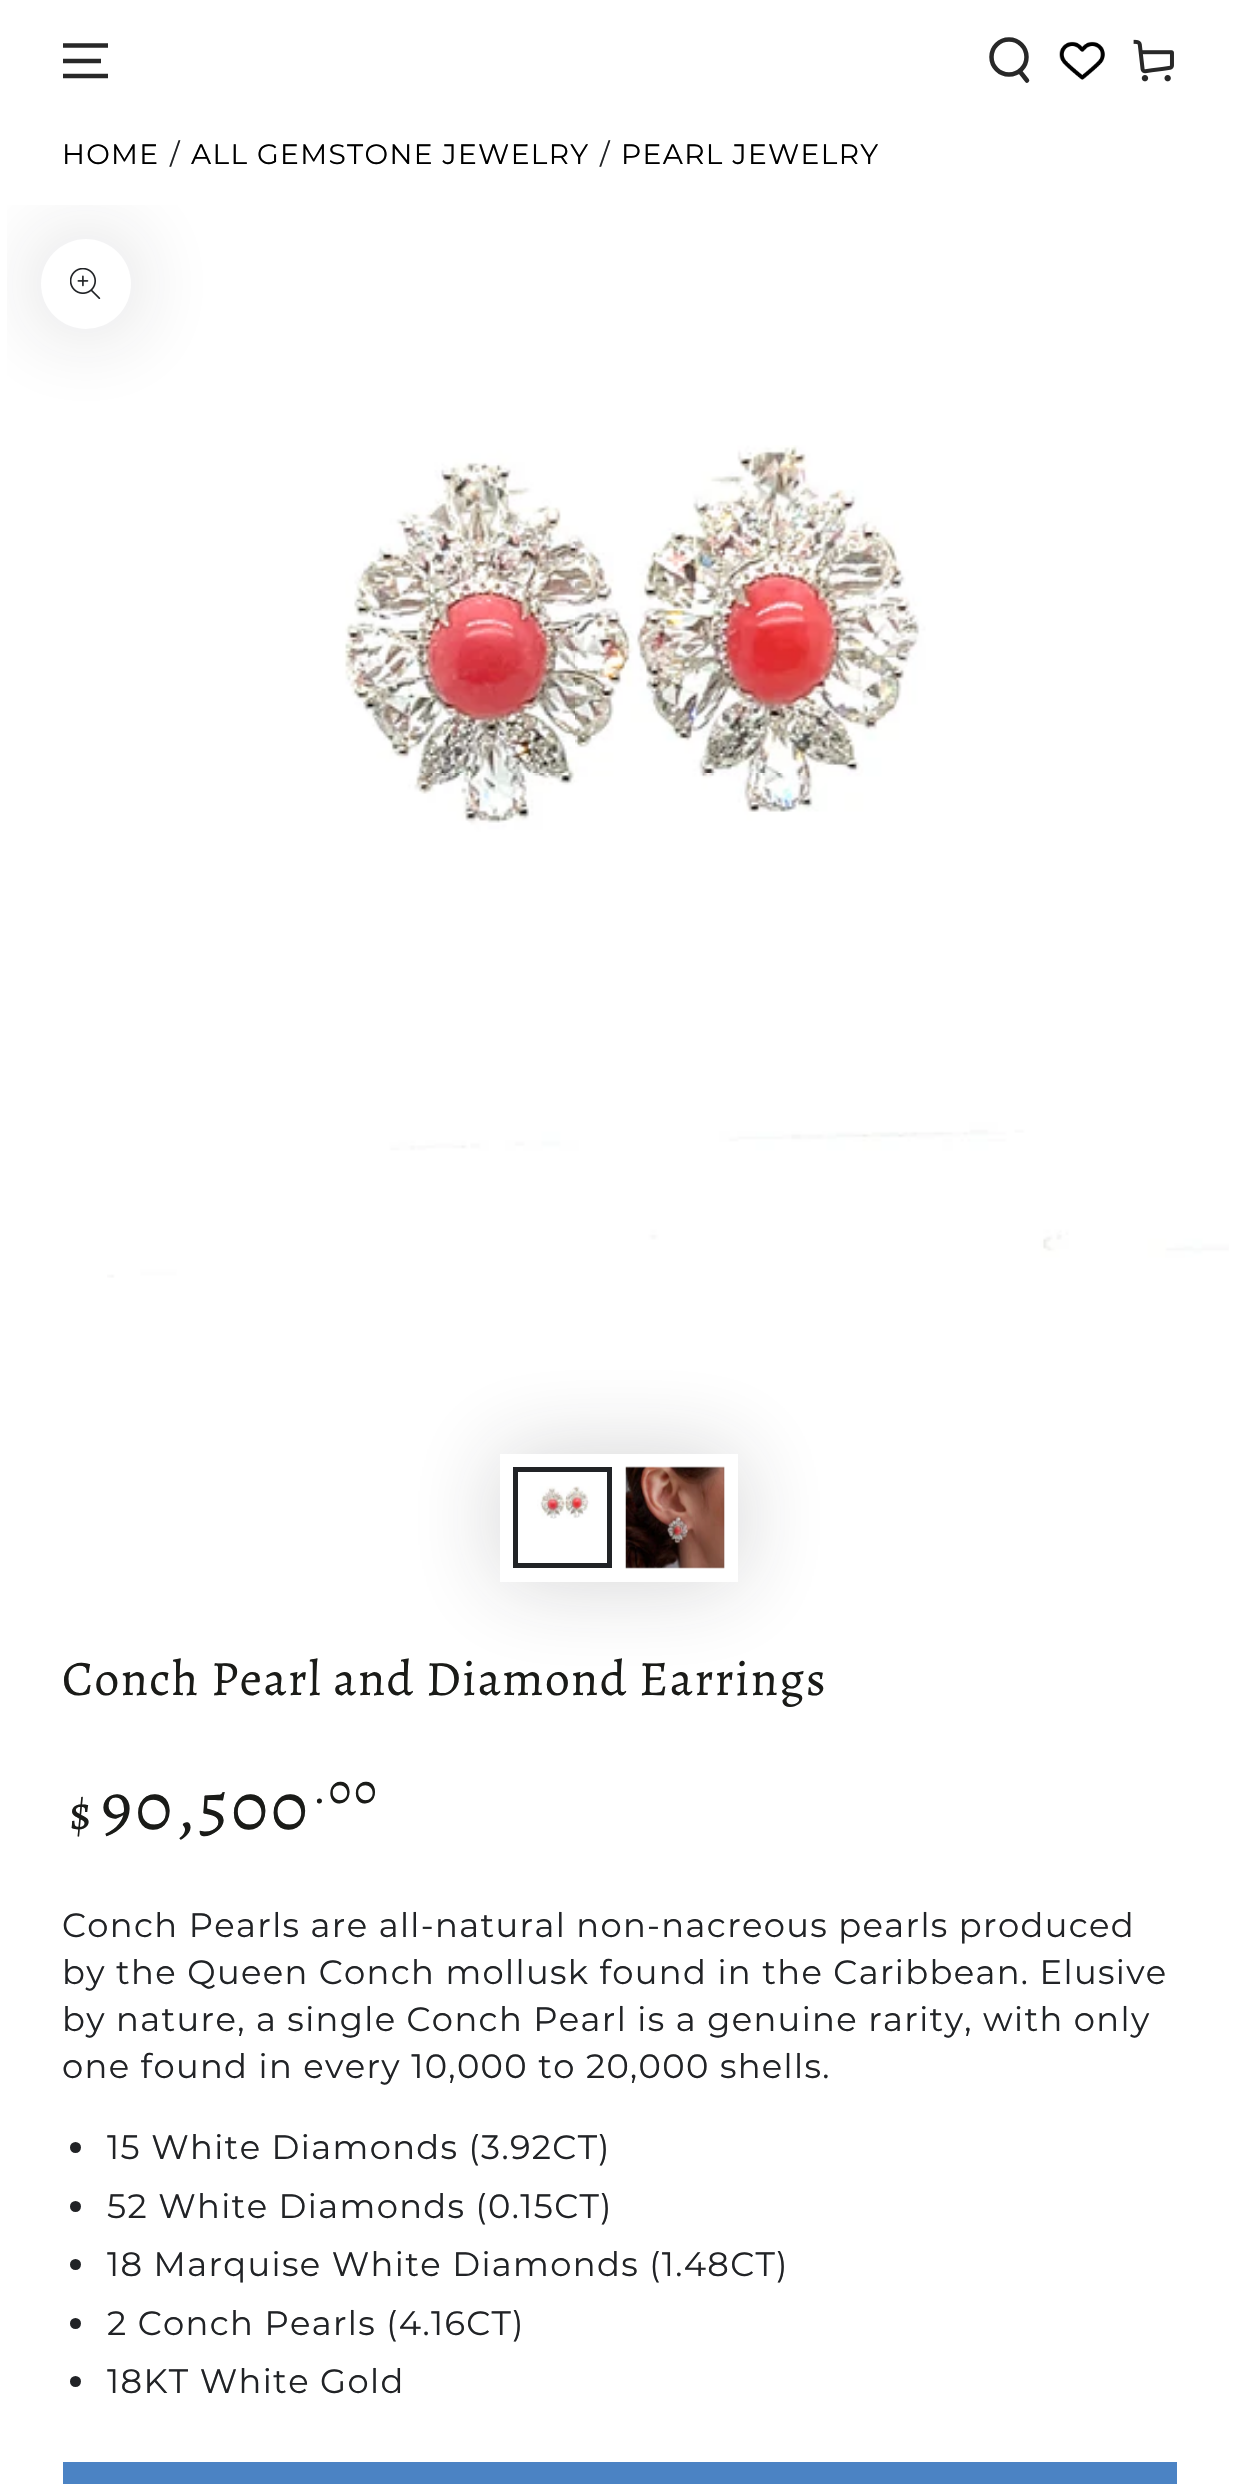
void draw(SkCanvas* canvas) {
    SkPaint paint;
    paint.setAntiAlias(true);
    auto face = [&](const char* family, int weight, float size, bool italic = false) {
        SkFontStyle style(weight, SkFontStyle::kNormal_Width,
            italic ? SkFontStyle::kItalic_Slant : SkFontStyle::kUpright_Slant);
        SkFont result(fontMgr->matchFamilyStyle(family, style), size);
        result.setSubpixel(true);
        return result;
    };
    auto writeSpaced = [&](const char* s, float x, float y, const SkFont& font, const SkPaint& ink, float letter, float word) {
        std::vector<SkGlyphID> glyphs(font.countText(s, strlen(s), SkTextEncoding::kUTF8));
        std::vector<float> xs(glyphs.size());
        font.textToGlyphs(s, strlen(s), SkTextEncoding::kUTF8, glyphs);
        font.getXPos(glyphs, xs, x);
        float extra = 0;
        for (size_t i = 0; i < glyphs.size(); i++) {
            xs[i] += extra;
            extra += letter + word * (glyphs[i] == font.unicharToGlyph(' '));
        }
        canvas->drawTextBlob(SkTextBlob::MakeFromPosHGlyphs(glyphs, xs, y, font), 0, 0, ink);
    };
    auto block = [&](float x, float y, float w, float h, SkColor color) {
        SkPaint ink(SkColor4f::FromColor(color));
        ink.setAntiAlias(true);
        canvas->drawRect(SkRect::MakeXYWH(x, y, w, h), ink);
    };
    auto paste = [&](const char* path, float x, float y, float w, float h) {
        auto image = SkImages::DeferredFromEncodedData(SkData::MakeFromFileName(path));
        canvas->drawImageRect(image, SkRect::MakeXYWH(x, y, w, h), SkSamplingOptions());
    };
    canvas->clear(SK_ColorWHITE);
    paint.setStyle(SkPaint::kStroke_Style);
    paint.setStrokeWidth(4.5f);
    paint.setColor(SkColorSetRGB(40, 40, 40));
    canvas->drawPath(SkPathBuilder().moveTo(63, 76).lineTo(108, 76).moveTo(63, 61).lineTo(101, 61).moveTo(63, 45.5f).lineTo(108, 45.5f).detach(), paint);
    canvas->drawCircle(1009, 57, 17.5f, paint);
    paint.setStrokeCap(SkPaint::kRound_Cap);
    canvas->drawPath(SkPathBuilder().moveTo(1019.5f, 71).lineTo(1027, 80.5f).detach(), paint);
    paste("pic1.png", 1059, 41, 46, 39);
    paste("pic2.png", 1133, 39, 41, 43);
    paste("pic4.png", 107, 445, 1122, 833);
    canvas->save();
    canvas->clipRect(SkRect::MakeXYWH(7, 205, 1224, 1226));
    paint.setStyle(SkPaint::kFill_Style);
    paint.setColor(SkColorSetARGB(51, 33, 35, 38));
    paint.setMaskFilter(SkMaskFilter::MakeBlur(kNormal_SkBlurStyle, 45));
    canvas->drawRoundRect(SkRect::MakeXYWH(41, 239, 90, 90), 45, 45, paint);
    paint.setMaskFilter(nullptr);
    canvas->restore();
    paint.setColor(SK_ColorWHITE);
    canvas->drawCircle(86, 284, 45, paint);
    paste("pic3.png", 70, 268, 31, 31);
    paint.setColor(SkColorSetARGB(51, 33, 35, 38));
    paint.setMaskFilter(SkMaskFilter::MakeBlur(kNormal_SkBlurStyle, 45));
    canvas->drawRect(SkRect::MakeXYWH(500, 1454, 238, 128), paint);
    paint.setMaskFilter(nullptr);
    block(500, 1454, 238, 128, SK_ColorWHITE);
    paste("pic5.png", 537, 1486, 53, 33);
    paint.setStyle(SkPaint::kStroke_Style);
    paint.setStrokeWidth(5);
    paint.setStrokeCap(SkPaint::kButt_Cap);
    paint.setColor(SkColorSetRGB(33, 35, 38));
    canvas->drawRect(SkRect::MakeXYWH(515.5f, 1469.5f, 94, 96), paint);
    paste("pic6.png", 625, 1466, 100, 103);
    paint.setStrokeWidth(2);
    paint.setColor(SkColorSetARGB(10, 33, 35, 38));
    canvas->drawRect(SkRect::MakeXYWH(627, 1468, 97, 99), paint);
    auto kFont1 = face("Montserrat", 100, 28.1f);
    paint.setStyle(SkPaint::kFill_Style);
    paint.setColor(SK_ColorBLACK);
    writeSpaced("HOME", 62, 164, kFont1, paint, 1.35f, 0);
    paint.setColor(SkColorSetRGB(33, 35, 38));
    writeSpaced("/", 170, 164, kFont1, paint, 1.35f, 0);
    paint.setColor(SK_ColorBLACK);
    writeSpaced("ALL GEMSTONE JEWELRY", 191, 164, kFont1, paint, 1.35f, 0);
    paint.setColor(SkColorSetRGB(33, 35, 38));
    writeSpaced("/", 600, 164, kFont1, paint, 1.35f, 0);
    paint.setColor(SK_ColorBLACK);
    writeSpaced("PEARL JEWELRY", 621, 164, kFont1, paint, 1.35f, 0);
    auto kFont2 = face("Alegreya", 400, 49.5f);
    paint.setColor(SkColorSetRGB(26, 27, 24));
    writeSpaced("Conch Pearl and Diamond Earrings", 62, 1695, kFont2, paint, 1.5f, 0);
    auto kFont3 = face("Alegreya", 400, 49);
    writeSpaced("$", 69, 1829, kFont3, paint, 3, 0);
    auto kFont4 = face("Alegreya", 400, 69);
    writeSpaced("90,500", 101, 1829, kFont4, paint, 3, 0);
    auto kFont5 = face("Alegreya", 400, 42);
    writeSpaced(".00", 313, 1803, kFont5, paint, 3, 0);
    auto kFont6 = face("Montserrat", 100, 33.75f);
    paint.setColor(SkColorSetRGB(33, 35, 38));
    writeSpaced("Conch Pearls are all-natural non-nacreous pearls produced", 62, 1937, kFont6, paint, 1.35f, 0);
    writeSpaced("by the Queen Conch mollusk found in the Caribbean. Elusive", 62, 1984, kFont6, paint, 1.35f, 0);
    writeSpaced("by nature, a single Conch Pearl is a genuine rarity, with only", 62, 2031, kFont6, paint, 1.35f, 0);
    writeSpaced("one found in every 10,000 to 20,000 shells.", 62, 2078, kFont6, paint, 1.35f, 0);
    canvas->drawCircle(75.5f, 2147.5f, 5.5f, paint);
    writeSpaced("15 White Diamonds (3.92CT)", 107, 2159, kFont6, paint, 1.35f, 0);
    canvas->drawCircle(75.5f, 2206.5f, 5.5f, paint);
    writeSpaced("52 White Diamonds (0.15CT)", 107, 2218, kFont6, paint, 1.35f, 0);
    canvas->drawCircle(75.5f, 2264.5f, 5.5f, paint);
    writeSpaced("18 Marquise White Diamonds (1.48CT)", 107, 2276, kFont6, paint, 1.35f, 0);
    canvas->drawCircle(75.5f, 2323.5f, 5.5f, paint);
    writeSpaced("2 Conch Pearls (4.16CT)", 107, 2335, kFont6, paint, 1.35f, 0);
    canvas->drawCircle(75.5f, 2381.5f, 5.5f, paint);
    writeSpaced("18KT White Gold", 107, 2393, kFont6, paint, 1.35f, 0);
    block(63, 2462, 1114, 22, SkColorSetRGB(75, 131, 196));
}
